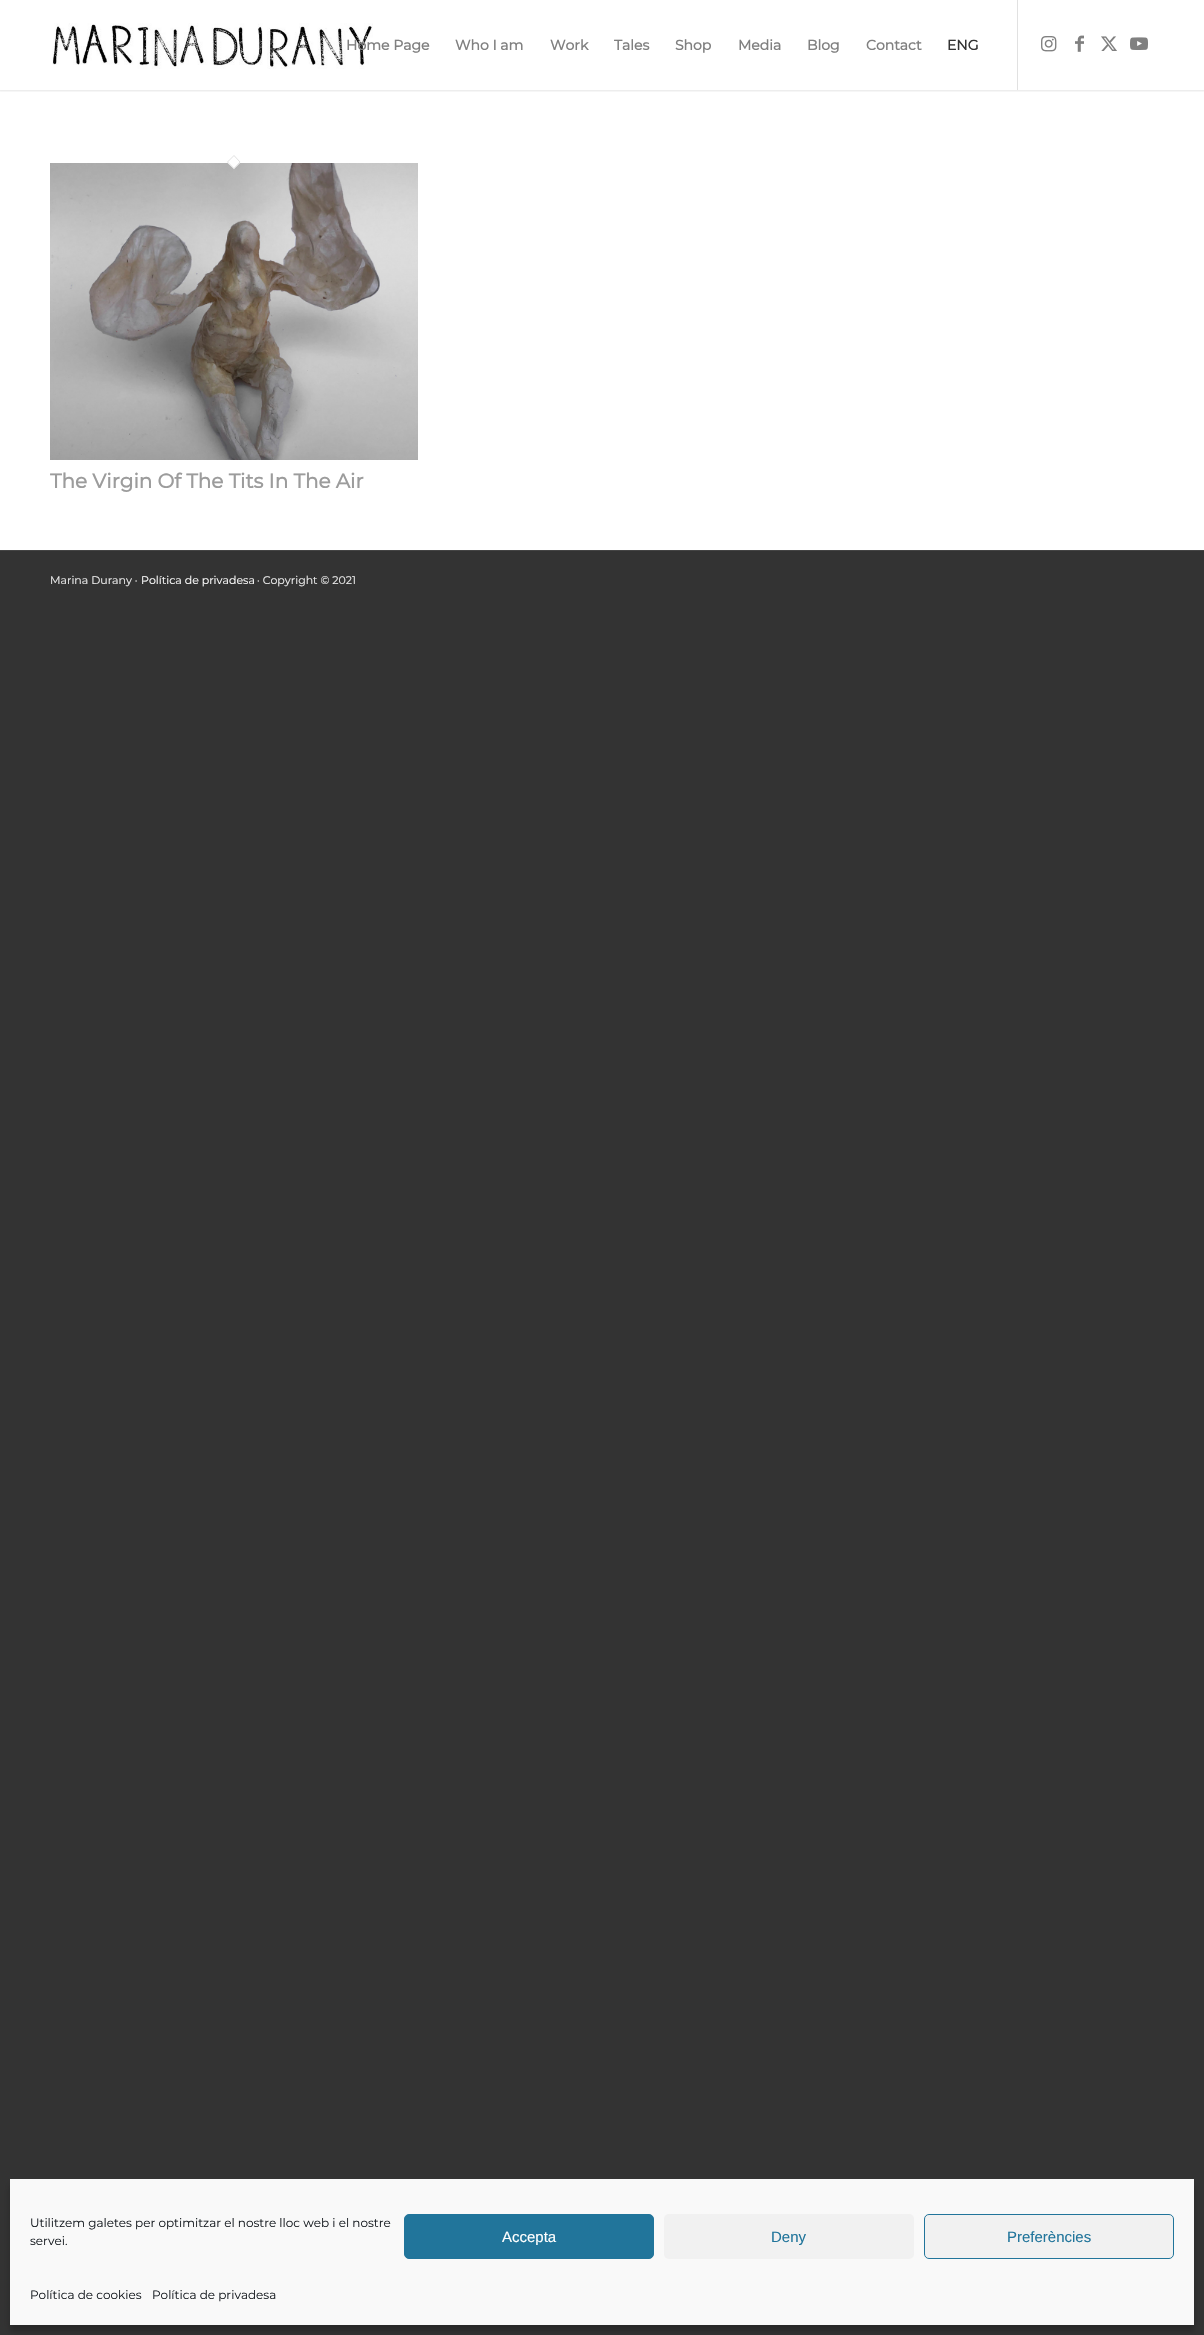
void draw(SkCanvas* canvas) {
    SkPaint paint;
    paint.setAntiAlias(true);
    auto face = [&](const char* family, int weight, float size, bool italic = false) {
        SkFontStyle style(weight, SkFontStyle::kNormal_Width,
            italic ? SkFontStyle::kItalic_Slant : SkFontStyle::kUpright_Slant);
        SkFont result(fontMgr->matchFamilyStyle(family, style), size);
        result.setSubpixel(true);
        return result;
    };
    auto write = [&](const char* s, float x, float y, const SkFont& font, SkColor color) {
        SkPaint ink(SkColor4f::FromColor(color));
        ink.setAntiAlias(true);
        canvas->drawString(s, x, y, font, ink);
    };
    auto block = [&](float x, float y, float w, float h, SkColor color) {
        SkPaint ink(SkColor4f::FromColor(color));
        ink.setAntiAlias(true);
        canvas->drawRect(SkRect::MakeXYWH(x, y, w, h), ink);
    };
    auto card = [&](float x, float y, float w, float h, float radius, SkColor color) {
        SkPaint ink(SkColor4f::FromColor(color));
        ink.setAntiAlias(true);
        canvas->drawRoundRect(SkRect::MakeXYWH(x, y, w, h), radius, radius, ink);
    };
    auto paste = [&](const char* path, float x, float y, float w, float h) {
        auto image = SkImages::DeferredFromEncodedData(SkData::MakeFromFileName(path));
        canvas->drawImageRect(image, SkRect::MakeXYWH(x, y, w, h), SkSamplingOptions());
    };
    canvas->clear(SkColorSetRGB(51, 51, 51));
    block(0, 0, 1204, 550, SK_ColorWHITE);
    canvas->save();
    canvas->clipRect(SkRect::MakeXYWH(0, 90, 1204, 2));
    paint.setColor(SkColorSetARGB(26, 0, 0, 0));
    paint.setMaskFilter(SkMaskFilter::MakeBlur(kNormal_SkBlurStyle, 1));
    canvas->drawRect(SkRect::MakeXYWH(-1, -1, 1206, 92), paint);
    paint.setMaskFilter(nullptr);
    canvas->restore();
    paste("pic1.png", 52, 23, 321, 46);
    block(1017, 0, 1, 90, SkColorSetRGB(225, 225, 225));
    auto kFont1 = face("Montserrat", 700, 14);
    write("Home Page", 346, 50, kFont1, SkColorSetRGB(128, 128, 128));
    write("Who I am", 455, 50, kFont1, SkColorSetRGB(128, 128, 128));
    write("Work", 550, 50, kFont1, SkColorSetRGB(128, 128, 128));
    write("Tales", 614, 50, kFont1, SkColorSetRGB(128, 128, 128));
    write("Shop", 675, 50, kFont1, SkColorSetRGB(128, 128, 128));
    write("Media", 738, 50, kFont1, SkColorSetRGB(128, 128, 128));
    write("Blog", 807, 50, kFont1, SkColorSetRGB(128, 128, 128));
    write("Contact", 866, 50, kFont1, SkColorSetRGB(128, 128, 128));
    write("ENG", 947, 50, kFont1, SkColorSetRGB(51, 51, 51));
    paste("pic2.png", 1041, 36, 16, 16);
    paste("pic3.png", 1075, 35, 9, 17);
    paste("pic4.png", 1101, 36, 16, 15);
    paste("pic5.png", 1130, 37, 18, 13);
    paste("pic6.png", 50, 163, 368, 297);
    paint.setColor(SK_ColorWHITE);
    canvas->drawPath(SkPathBuilder().moveTo(234, 155).lineTo(241, 162).lineTo(234, 169).lineTo(226.5f, 162).close().detach(), paint);
    paint.setStyle(SkPaint::kStroke_Style);
    paint.setStrokeWidth(1);
    paint.setColor(SkColorSetRGB(225, 225, 225));
    canvas->drawPath(SkPathBuilder().moveTo(234, 155.5f).lineTo(240, 162).lineTo(234, 168.5f).lineTo(227.5f, 162).close().detach(), paint);
    auto kFont2 = face("Montserrat", 700, 20);
    write("The Virgin Of The Tits In The Air", 50, 488, kFont2, SkColorSetRGB(156, 156, 156));
    block(0, 550, 1204, 1, SkColorSetRGB(68, 68, 68));
    auto kFont3 = face("Montserrat", 100, 11);
    write("Marina Durany ·", 50, 584, kFont3, SkColorSetRGB(238, 238, 238));
    write("Política de privadesa", 141, 584, kFont3, SK_ColorWHITE);
    write("· Copyright © 2021", 257, 584, kFont3, SkColorSetRGB(238, 238, 238));
    paint.setStyle(SkPaint::kFill_Style);
    paint.setColor(SkColorSetARGB(59, 0, 0, 0));
    paint.setMaskFilter(SkMaskFilter::MakeBlur(kNormal_SkBlurStyle, 3));
    canvas->drawRect(SkRect::MakeXYWH(10, 2185, 1184, 146), paint);
    paint.setMaskFilter(nullptr);
    block(10, 2179, 1184, 146, SkColorSetRGB(249, 249, 249));
    auto kFont4 = face("Montserrat", 100, 12);
    write("Utilitzem galetes per optimitzar el nostre lloc web i el nostre", 30, 2227, kFont4, SkColorSetRGB(25, 30, 35));
    write("servei.", 30, 2245, kFont4, SkColorSetRGB(25, 30, 35));
    paint.setColor(SkColorSetRGB(33, 117, 155));
    canvas->drawRoundRect(SkRect::MakeXYWH(404.5f, 2214.5f, 249, 44), 4.5f, 4.5f, paint);
    paint.setStyle(SkPaint::kStroke_Style);
    canvas->drawRoundRect(SkRect::MakeXYWH(404.5f, 2214.5f, 249, 44), 4.5f, 4.5f, paint);
    auto kFont5 = face("Liberation Sans", 400, 15);
    write("Accepta", 502, 2242, kFont5, SK_ColorWHITE);
    card(664, 2214, 250, 45, 5, SkColorSetRGB(241, 241, 241));
    write("Deny", 771, 2242, kFont5, SkColorSetRGB(33, 117, 155));
    paint.setStyle(SkPaint::kFill_Style);
    paint.setColor(SkColorSetRGB(241, 241, 241));
    canvas->drawRoundRect(SkRect::MakeXYWH(924.5f, 2214.5f, 249, 44), 4.5f, 4.5f, paint);
    paint.setStyle(SkPaint::kStroke_Style);
    paint.setColor(SkColorSetRGB(33, 117, 155));
    canvas->drawRoundRect(SkRect::MakeXYWH(924.5f, 2214.5f, 249, 44), 4.5f, 4.5f, paint);
    write("Preferències", 1007, 2242, kFont5, SkColorSetRGB(33, 117, 155));
    write("Política de cookies", 30, 2299, kFont4, SkColorSetRGB(25, 30, 35));
    write("Política de privadesa", 152, 2299, kFont4, SkColorSetRGB(25, 30, 35));
}
